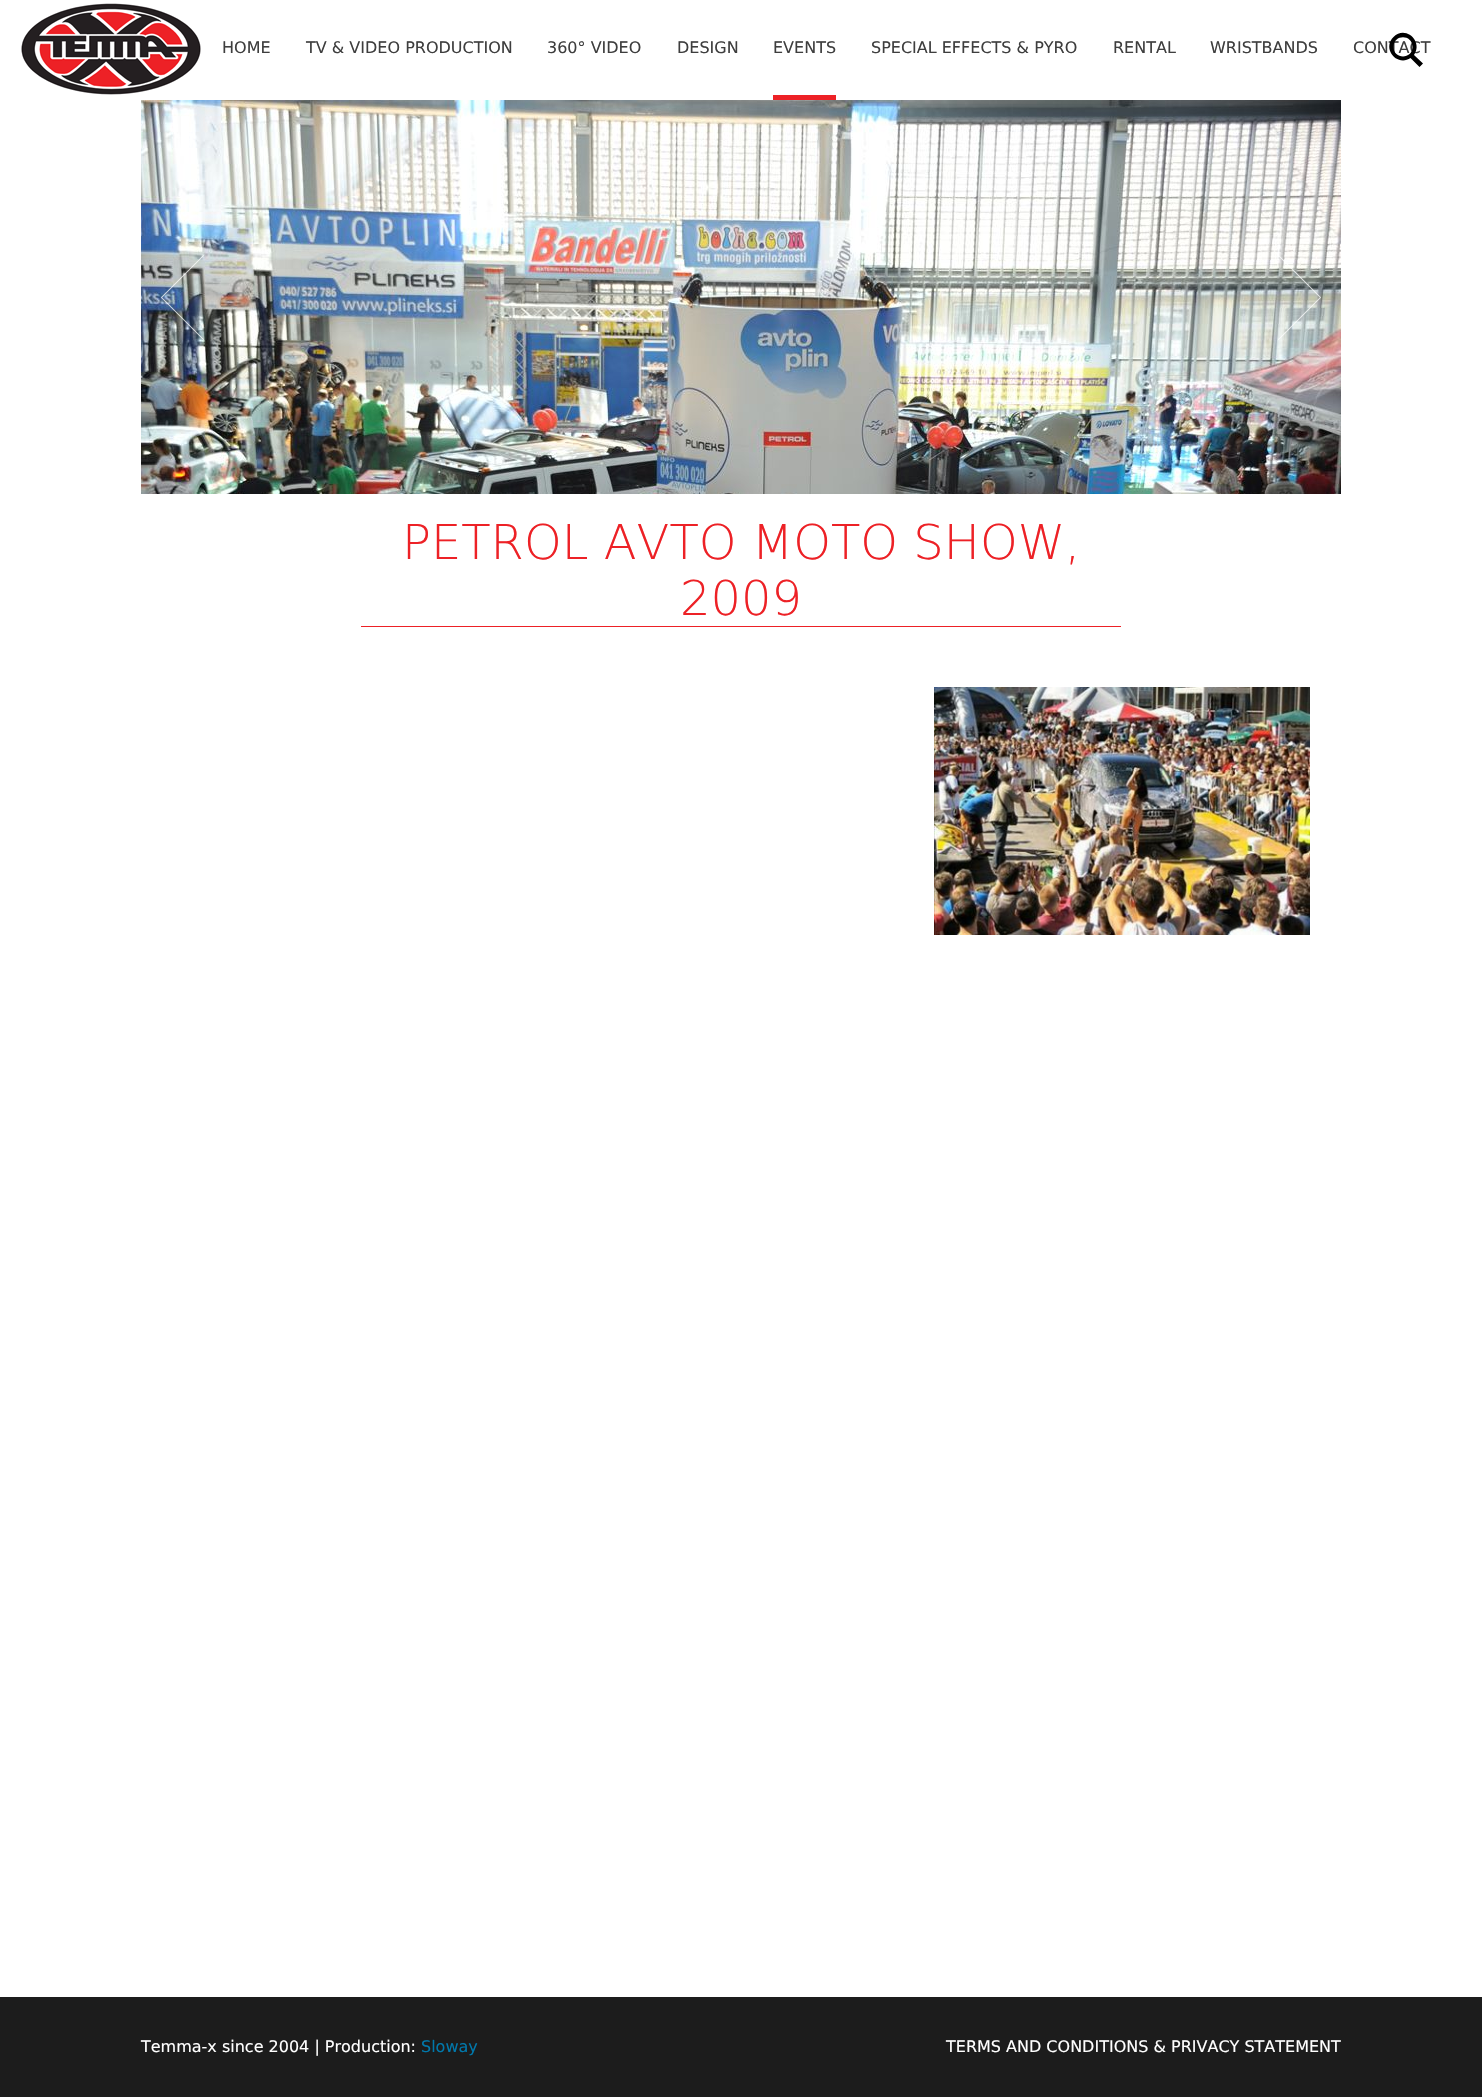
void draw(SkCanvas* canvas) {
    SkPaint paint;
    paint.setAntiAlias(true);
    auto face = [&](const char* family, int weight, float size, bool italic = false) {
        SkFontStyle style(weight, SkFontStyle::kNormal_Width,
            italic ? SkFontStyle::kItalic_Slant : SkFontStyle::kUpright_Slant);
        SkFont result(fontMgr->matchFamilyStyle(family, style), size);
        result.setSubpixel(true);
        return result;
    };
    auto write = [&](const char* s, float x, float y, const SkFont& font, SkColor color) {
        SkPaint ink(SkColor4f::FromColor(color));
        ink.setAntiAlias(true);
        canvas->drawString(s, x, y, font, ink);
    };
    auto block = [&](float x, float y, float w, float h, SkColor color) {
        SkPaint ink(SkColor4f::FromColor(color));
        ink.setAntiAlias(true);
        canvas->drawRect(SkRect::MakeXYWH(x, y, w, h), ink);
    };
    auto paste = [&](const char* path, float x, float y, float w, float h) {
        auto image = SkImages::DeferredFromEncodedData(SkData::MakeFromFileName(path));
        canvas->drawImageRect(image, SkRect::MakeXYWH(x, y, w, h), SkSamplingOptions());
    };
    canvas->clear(SK_ColorWHITE);
    paste("pic1.png", 21, 3, 180, 92);
    auto kFont1 = face("DejaVu Sans", 400, 16);
    write("CONTACT", 1353, 53, kFont1, SkColorSetRGB(62, 62, 62));
    paint.setColor(SK_ColorBLACK);
    canvas->drawPath(SkPathBuilder().moveTo(1423, 63.5f).lineTo(1414, 55).cubicTo(1423.5f, 41.5f, 1405.5f, 25, 1393.5f, 37).cubicTo(1381.5f, 49, 1397.5f, 67, 1410.5f, 58).lineTo(1419.5f, 67).close().moveTo(1393.5f, 47).cubicTo(1393.5f, 34, 1412.5f, 34, 1412.5f, 47).cubicTo(1412.5f, 59.5f, 1393.5f, 59.5f, 1393.5f, 47).close().detach(), paint);
    write("HOME", 222, 53, kFont1, SkColorSetRGB(62, 62, 62));
    write("TV & VIDEO PRODUCTION", 306, 53, kFont1, SkColorSetRGB(62, 62, 62));
    write("360° VIDEO", 547, 53, kFont1, SkColorSetRGB(62, 62, 62));
    write("DESIGN", 677, 53, kFont1, SkColorSetRGB(62, 62, 62));
    block(773, 95, 63, 5, SkColorSetRGB(237, 33, 38));
    write("EVENTS", 773, 53, kFont1, SkColorSetRGB(62, 62, 62));
    write("SPECIAL EFFECTS & PYRO", 871, 53, kFont1, SkColorSetRGB(62, 62, 62));
    write("RENTAL", 1113, 53, kFont1, SkColorSetRGB(62, 62, 62));
    write("WRISTBANDS", 1210, 53, kFont1, SkColorSetRGB(62, 62, 62));
    paste("pic2.png", 141, 100, 1200, 394);
    paste("pic3.png", 161, 255, 43, 85);
    paste("pic4.png", 1278, 256, 43, 84);
    block(361, 626, 760, 1, SkColorSetRGB(237, 33, 38));
    auto kFont2 = face("DejaVu Sans", 200, 48);
    write("PETROL AVTO MOTO SHOW,", 402, 559, kFont2, SkColorSetRGB(237, 33, 38));
    write("2009", 680, 615, kFont2, SkColorSetRGB(237, 33, 38));
    paste("pic5.png", 934, 687, 376, 248);
    block(0, 1997, 1482, 100, SkColorSetRGB(28, 28, 28));
    write("Temma-x since 2004 | Production:", 141, 2052, kFont1, SK_ColorWHITE);
    write("Sloway", 421, 2052, kFont1, SkColorSetRGB(0, 120, 171));
    write("TERMS AND CONDITIONS & PRIVACY STATEMENT", 946, 2052, kFont1, SK_ColorWHITE);
}
